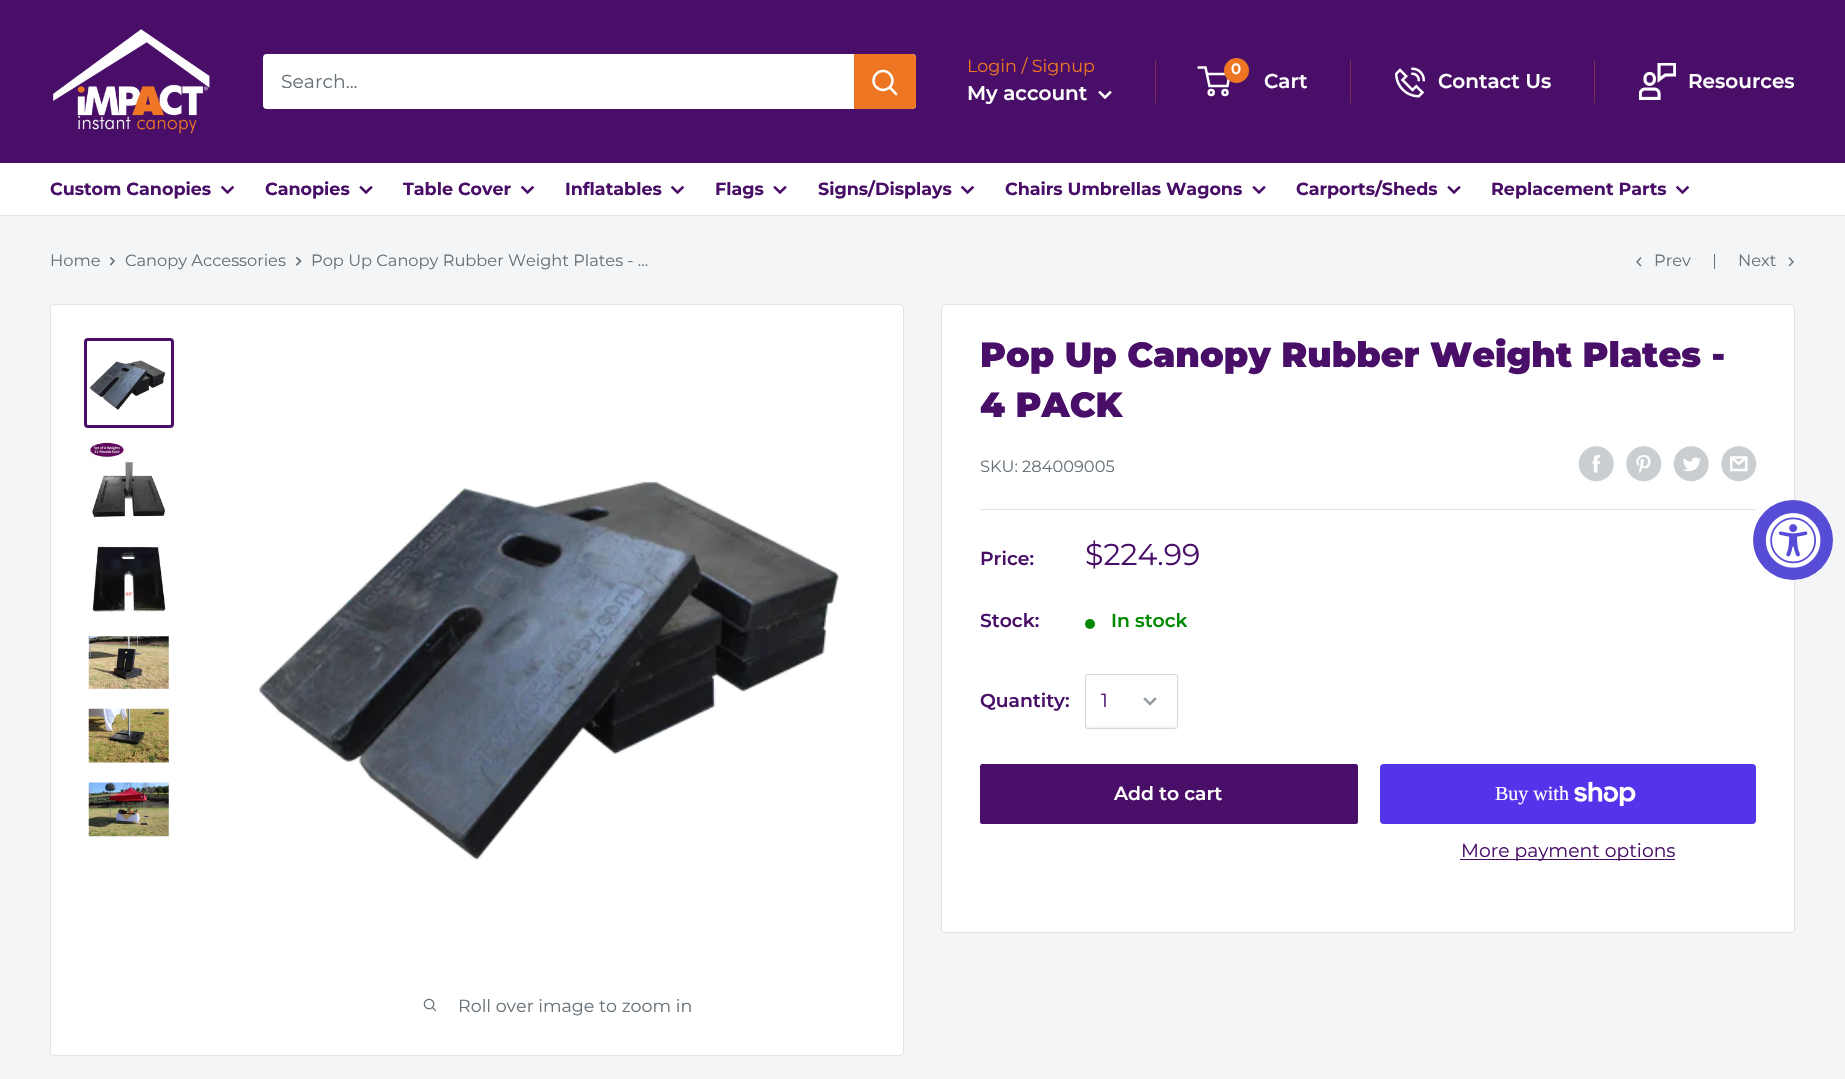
void draw(SkCanvas* canvas) {
    SkPaint paint;
    paint.setAntiAlias(true);
    auto face = [&](const char* family, int weight, float size, bool italic = false) {
        SkFontStyle style(weight, SkFontStyle::kNormal_Width,
            italic ? SkFontStyle::kItalic_Slant : SkFontStyle::kUpright_Slant);
        SkFont result(fontMgr->matchFamilyStyle(family, style), size);
        result.setSubpixel(true);
        return result;
    };
    auto write = [&](const char* s, float x, float y, const SkFont& font, SkColor color) {
        SkPaint ink(SkColor4f::FromColor(color));
        ink.setAntiAlias(true);
        canvas->drawString(s, x, y, font, ink);
    };
    auto block = [&](float x, float y, float w, float h, SkColor color) {
        SkPaint ink(SkColor4f::FromColor(color));
        ink.setAntiAlias(true);
        canvas->drawRect(SkRect::MakeXYWH(x, y, w, h), ink);
    };
    auto card = [&](float x, float y, float w, float h, float radius, SkColor color) {
        SkPaint ink(SkColor4f::FromColor(color));
        ink.setAntiAlias(true);
        canvas->drawRoundRect(SkRect::MakeXYWH(x, y, w, h), radius, radius, ink);
    };
    auto paste = [&](const char* path, float x, float y, float w, float h) {
        auto image = SkImages::DeferredFromEncodedData(SkData::MakeFromFileName(path));
        canvas->drawImageRect(image, SkRect::MakeXYWH(x, y, w, h), SkSamplingOptions());
    };
    canvas->clear(SkColorSetRGB(243, 245, 246));
    block(0, 0, 1845, 163, SkColorSetRGB(73, 14, 103));
    paste("pic1.png", 53, 29, 157, 105);
    card(263, 54, 653, 55, 4, SK_ColorWHITE);
    auto kFont1 = face("Montserrat", 400, 18.75f);
    write("Search...", 281, 88, kFont1, SkColorSetRGB(103, 114, 121));
    paint.setColor(SkColorSetRGB(238, 118, 35));
    canvas->drawPath(SkPathBuilder().moveTo(854, 54).lineTo(912, 54).cubicTo(914, 54, 916, 56, 916, 58).lineTo(916, 105).cubicTo(916, 107, 914, 109, 912, 109).lineTo(854, 109).close().detach(), paint);
    paint.setStyle(SkPaint::kStroke_Style);
    paint.setStrokeWidth(2.5f);
    paint.setStrokeCap(SkPaint::kSquare_Cap);
    paint.setColor(SK_ColorWHITE);
    canvas->drawPath(SkPathBuilder().moveTo(896, 94).lineTo(890, 87.5f).detach(), paint);
    paint.setStrokeCap(SkPaint::kButt_Cap);
    canvas->drawCircle(883, 80.5f, 9.5f, paint);
    auto kFont2 = face("Montserrat", 400, 17.5f);
    write("Login / Signup", 967, 72, kFont2, SkColorSetRGB(238, 118, 35));
    block(1155, 60, 1, 43, SkColorSetRGB(123, 45, 83));
    auto kFont3 = face("Montserrat", 600, 20);
    write("My account", 967, 100, kFont3, SK_ColorWHITE);
    paint.setStrokeCap(SkPaint::kSquare_Cap);
    canvas->drawPath(SkPathBuilder().moveTo(1110, 92.5f).lineTo(1105, 97.5f).lineTo(1100, 92.5f).detach(), paint);
    paint.setStrokeCap(SkPaint::kButt_Cap);
    canvas->drawCircle(1211.2f, 92.5f, 2.5f, paint);
    canvas->drawCircle(1225, 92.5f, 2.5f, paint);
    canvas->drawPath(SkPathBuilder().moveTo(1206.5f, 74).lineTo(1229.5f, 74).lineTo(1227.5f, 86).lineTo(1209.5f, 86).lineTo(1205.5f, 67.5f).lineTo(1197.5f, 67.5f).detach(), paint);
    paint.setStyle(SkPaint::kFill_Style);
    paint.setColor(SkColorSetRGB(238, 118, 35));
    canvas->drawCircle(1236.5f, 70.5f, 12.5f, paint);
    auto kFont4 = face("Montserrat", 600, 15);
    write("0", 1231, 74, kFont4, SK_ColorWHITE);
    write("Cart", 1264, 88, kFont3, SK_ColorWHITE);
    block(1350, 60, 1, 43, SkColorSetRGB(123, 45, 83));
    paste("pic2.png", 1395, 67, 30, 31);
    write("Contact Us", 1438, 88, kFont3, SK_ColorWHITE);
    block(1594, 60, 1, 43, SkColorSetRGB(123, 45, 83));
    paste("pic3.png", 1639, 63, 37, 37);
    write("Resources", 1688, 88, kFont3, SK_ColorWHITE);
    block(0, 163, 1845, 52, SK_ColorWHITE);
    block(0, 215, 1845, 1, SkColorSetRGB(225, 227, 228));
    auto kFont5 = face("Montserrat", 700, 17.5f);
    write("Custom Canopies", 50, 195, kFont5, SkColorSetRGB(73, 14, 103));
    paint.setStyle(SkPaint::kStroke_Style);
    paint.setStrokeCap(SkPaint::kSquare_Cap);
    paint.setColor(SkColorSetRGB(73, 15, 103));
    canvas->drawPath(SkPathBuilder().moveTo(232.5f, 187.5f).lineTo(227.5f, 192.5f).lineTo(222.5f, 187.5f).detach(), paint);
    write("Canopies", 265, 195, kFont5, SkColorSetRGB(73, 14, 103));
    canvas->drawPath(SkPathBuilder().moveTo(371, 187.5f).lineTo(366, 192.5f).lineTo(361, 187.5f).detach(), paint);
    write("Table Cover", 403, 195, kFont5, SkColorSetRGB(73, 14, 103));
    canvas->drawPath(SkPathBuilder().moveTo(532.5f, 187.5f).lineTo(527.5f, 192.5f).lineTo(522.5f, 187.5f).detach(), paint);
    write("Inflatables", 565, 195, kFont5, SkColorSetRGB(73, 14, 103));
    canvas->drawPath(SkPathBuilder().moveTo(682.5f, 187.5f).lineTo(677.5f, 192.5f).lineTo(672.5f, 187.5f).detach(), paint);
    write("Flags", 715, 195, kFont5, SkColorSetRGB(73, 14, 103));
    canvas->drawPath(SkPathBuilder().moveTo(785, 187.5f).lineTo(780, 192.5f).lineTo(775, 187.5f).detach(), paint);
    write("Signs/Displays", 818, 195, kFont5, SkColorSetRGB(73, 14, 103));
    canvas->drawPath(SkPathBuilder().moveTo(972.5f, 187.5f).lineTo(967.5f, 192.5f).lineTo(962.5f, 187.5f).detach(), paint);
    write("Chairs Umbrellas Wagons", 1005, 195, kFont5, SkColorSetRGB(73, 14, 103));
    canvas->drawPath(SkPathBuilder().moveTo(1264, 187.5f).lineTo(1259, 192.5f).lineTo(1254, 187.5f).detach(), paint);
    write("Carports/Sheds", 1296, 195, kFont5, SkColorSetRGB(73, 14, 103));
    canvas->drawPath(SkPathBuilder().moveTo(1459, 187.5f).lineTo(1454, 192.5f).lineTo(1449, 187.5f).detach(), paint);
    write("Replacement Parts", 1491, 195, kFont5, SkColorSetRGB(73, 14, 103));
    canvas->drawPath(SkPathBuilder().moveTo(1687.5f, 187.5f).lineTo(1682.5f, 192.5f).lineTo(1677.5f, 187.5f).detach(), paint);
    auto kFont6 = face("Montserrat", 400, 16.25f);
    write("Home", 50, 266, kFont6, SkColorSetRGB(103, 114, 121));
    paint.setStrokeWidth(1.7f);
    paint.setColor(SkColorSetRGB(103, 114, 121));
    canvas->drawPath(SkPathBuilder().moveTo(111, 258).lineTo(114, 261).lineTo(111, 264.5f).detach(), paint);
    write("Canopy Accessories", 125, 266, kFont6, SkColorSetRGB(103, 114, 121));
    canvas->drawPath(SkPathBuilder().moveTo(297, 258).lineTo(300.5f, 261).lineTo(297, 264.5f).detach(), paint);
    write("Pop Up Canopy Rubber Weight Plates - ...", 311, 266, kFont6, SkColorSetRGB(103, 114, 121));
    paint.setStrokeWidth(1.4f);
    canvas->drawPath(SkPathBuilder().moveTo(1640.5f, 265.5f).lineTo(1637, 262).lineTo(1640.5f, 258).detach(), paint);
    write("Prev", 1654, 266, kFont6, SkColorSetRGB(103, 114, 121));
    block(1714, 254, 1, 15, SkColorSetRGB(103, 114, 121));
    write("Next", 1738, 266, kFont6, SkColorSetRGB(103, 114, 121));
    canvas->drawPath(SkPathBuilder().moveTo(1789.5f, 258).lineTo(1793, 262).lineTo(1789.5f, 265.5f).detach(), paint);
    paint.setStyle(SkPaint::kFill_Style);
    paint.setColor(SK_ColorWHITE);
    canvas->drawRoundRect(SkRect::MakeXYWH(941.5f, 304.5f, 853, 628), 3.5f, 3.5f, paint);
    paint.setStyle(SkPaint::kStroke_Style);
    paint.setStrokeWidth(1);
    paint.setStrokeCap(SkPaint::kButt_Cap);
    paint.setColor(SkColorSetRGB(225, 227, 228));
    canvas->drawRoundRect(SkRect::MakeXYWH(941.5f, 304.5f, 853, 628), 3.5f, 3.5f, paint);
    auto kFont7 = face("Montserrat", 900, 35);
    write("Pop Up Canopy Rubber Weight Plates -", 980, 367, kFont7, SkColorSetRGB(73, 14, 103));
    write("4 PACK", 980, 417, kFont7, SkColorSetRGB(73, 14, 103));
    write("SKU: 284009005", 980, 472, kFont6, SkColorSetRGB(103, 114, 121));
    paste("pic4.png", 1578, 446, 36, 36);
    paste("pic5.png", 1626, 446, 36, 36);
    paste("pic6.png", 1673, 446, 36, 36);
    paste("pic7.png", 1721, 446, 36, 36);
    block(980, 509, 776, 1, SkColorSetRGB(225, 227, 228));
    auto kFont8 = face("Montserrat", 600, 18.75f);
    write("Price:", 980, 565, kFont8, SkColorSetRGB(73, 14, 103));
    auto kFont9 = face("Montserrat", 400, 30);
    write("$224.99", 1085, 565, kFont9, SkColorSetRGB(73, 14, 103));
    write("Stock:", 980, 627, kFont8, SkColorSetRGB(73, 14, 103));
    paint.setStyle(SkPaint::kFill_Style);
    paint.setColor(SkColorSetRGB(0, 138, 0));
    canvas->drawCircle(1090, 624, 5, paint);
    write("In stock", 1111, 627, kFont8, SkColorSetRGB(0, 138, 0));
    write("Quantity:", 980, 707, kFont8, SkColorSetRGB(73, 14, 103));
    paint.setColor(SkColorSetRGB(242, 243, 243));
    canvas->drawPath(SkPathBuilder().moveTo(1086, 725).cubicTo(1086, 732, 1093, 728, 1102, 728).lineTo(1160, 728).cubicTo(1170, 728, 1176, 732, 1176, 725).lineTo(1175, 726).lineTo(1102, 726).cubicTo(1099, 726, 1090, 727, 1087, 726).close().detach(), paint);
    paint.setStyle(SkPaint::kStroke_Style);
    paint.setColor(SkColorSetRGB(212, 214, 216));
    canvas->drawRoundRect(SkRect::MakeXYWH(1085.5f, 674.5f, 92, 54), 2, 2, paint);
    write("1", 1101, 707, kFont1, SkColorSetRGB(73, 14, 103));
    paint.setStrokeWidth(2.5f);
    paint.setStrokeCap(SkPaint::kSquare_Cap);
    paint.setColor(SkColorSetRGB(149, 156, 161));
    canvas->drawPath(SkPathBuilder().moveTo(1155, 699).lineTo(1150, 704).lineTo(1145, 699).detach(), paint);
    card(980, 764, 378, 60, 2.5f, SkColorSetRGB(73, 14, 103));
    write("Add to cart", 1114, 800, kFont8, SK_ColorWHITE);
    card(1380, 764, 376, 60, 4, SkColorSetRGB(84, 51, 235));
    auto kFont10 = face("Liberation Serif", 400, 20);
    write("Buy with", 1495, 800, kFont10, SK_ColorWHITE);
    paste("pic8.png", 1574, 781, 62, 25);
    block(1460, 859, 215, 1, SkColorSetRGB(73, 14, 103));
    write("More payment options", 1461, 857, kFont1, SkColorSetRGB(73, 14, 103));
    paint.setStyle(SkPaint::kFill_Style);
    paint.setColor(SK_ColorWHITE);
    canvas->drawRoundRect(SkRect::MakeXYWH(50.5f, 304.5f, 853, 751), 3.5f, 3.5f, paint);
    paint.setStyle(SkPaint::kStroke_Style);
    paint.setStrokeWidth(1);
    paint.setStrokeCap(SkPaint::kButt_Cap);
    paint.setColor(SkColorSetRGB(225, 227, 228));
    canvas->drawRoundRect(SkRect::MakeXYWH(50.5f, 304.5f, 853, 751), 3.5f, 3.5f, paint);
    paint.setStrokeWidth(3);
    paint.setColor(SkColorSetRGB(73, 14, 103));
    canvas->drawRoundRect(SkRect::MakeXYWH(85.5f, 339.5f, 87, 87), 2.5f, 2.5f, paint);
    paste("pic9.png", 89, 360, 77, 50);
    paste("pic10.png", 89, 442, 76, 77);
    paste("pic11.png", 92, 546, 75, 67);
    paste("pic12.png", 88, 636, 81, 53);
    paste("pic13.png", 88, 708, 81, 55);
    paste("pic14.png", 88, 782, 81, 55);
    paste("pic15.png", 259, 481, 580, 379);
    paste("pic16.png", 423, 998, 14, 14);
    write("Roll over image to zoom in", 458, 1012, kFont2, SkColorSetRGB(103, 114, 121));
    paint.setStyle(SkPaint::kFill_Style);
    paint.setColor(SkColorSetRGB(87, 76, 213));
    canvas->drawCircle(1793, 540, 40, paint);
    paste("pic17.png", 1765, 513, 56, 55);
}
